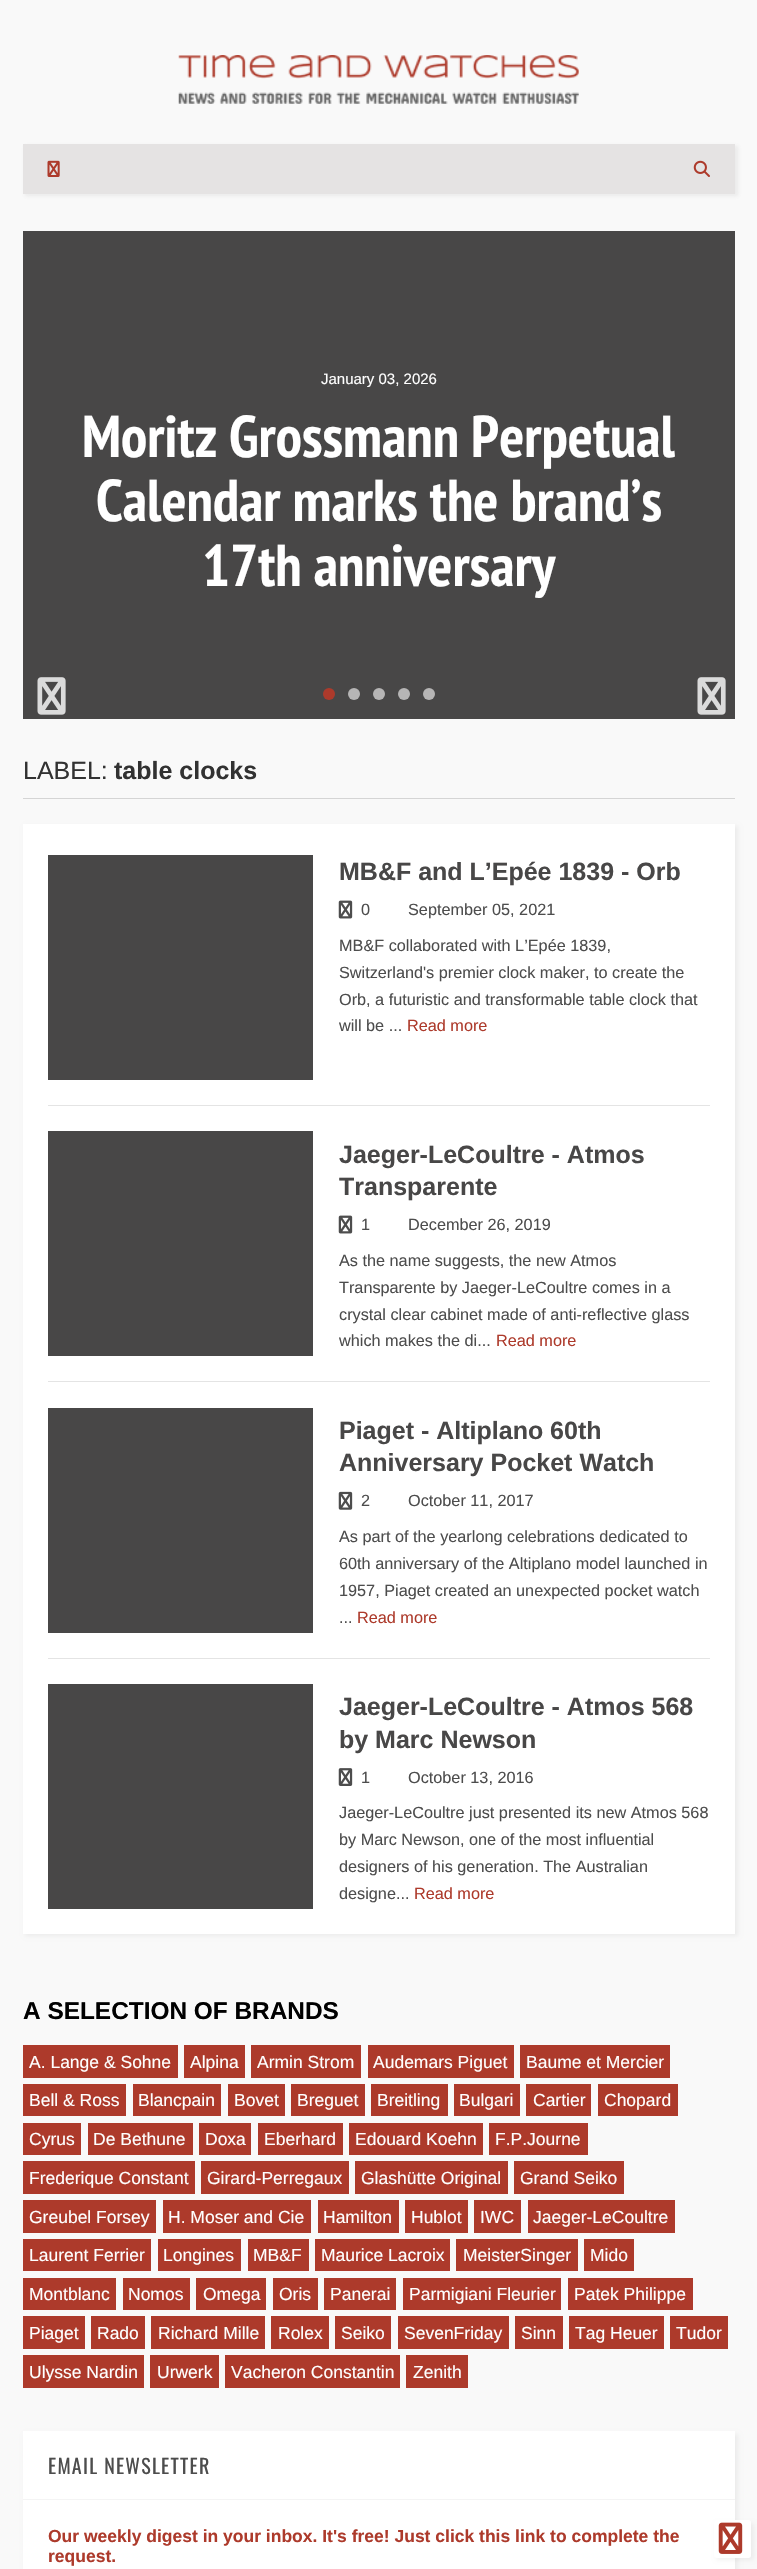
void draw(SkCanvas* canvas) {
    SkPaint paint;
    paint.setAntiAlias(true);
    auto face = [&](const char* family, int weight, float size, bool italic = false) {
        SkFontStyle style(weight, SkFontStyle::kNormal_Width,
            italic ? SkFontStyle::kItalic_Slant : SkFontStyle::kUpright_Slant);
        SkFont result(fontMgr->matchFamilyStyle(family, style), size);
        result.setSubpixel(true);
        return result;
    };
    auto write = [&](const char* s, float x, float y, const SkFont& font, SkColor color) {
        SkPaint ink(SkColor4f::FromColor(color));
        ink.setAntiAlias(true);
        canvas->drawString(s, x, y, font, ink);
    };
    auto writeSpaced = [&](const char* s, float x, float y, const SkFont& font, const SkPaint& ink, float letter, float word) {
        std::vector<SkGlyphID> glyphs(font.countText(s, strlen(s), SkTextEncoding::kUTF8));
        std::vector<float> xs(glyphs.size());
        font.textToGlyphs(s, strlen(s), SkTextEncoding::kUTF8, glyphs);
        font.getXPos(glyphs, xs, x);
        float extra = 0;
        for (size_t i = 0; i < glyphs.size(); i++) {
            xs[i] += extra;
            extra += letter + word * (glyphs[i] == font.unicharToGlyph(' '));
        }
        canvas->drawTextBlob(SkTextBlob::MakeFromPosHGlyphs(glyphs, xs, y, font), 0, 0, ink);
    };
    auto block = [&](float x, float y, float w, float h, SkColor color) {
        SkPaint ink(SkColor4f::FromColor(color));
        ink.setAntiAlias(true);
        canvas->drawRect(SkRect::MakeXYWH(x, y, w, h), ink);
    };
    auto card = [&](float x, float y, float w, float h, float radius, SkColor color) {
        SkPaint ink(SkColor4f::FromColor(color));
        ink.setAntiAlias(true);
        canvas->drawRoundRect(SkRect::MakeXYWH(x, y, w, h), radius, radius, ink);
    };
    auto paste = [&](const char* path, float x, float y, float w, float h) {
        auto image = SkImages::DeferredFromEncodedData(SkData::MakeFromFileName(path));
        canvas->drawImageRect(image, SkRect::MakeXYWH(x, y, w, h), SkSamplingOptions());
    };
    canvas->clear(SkColorSetRGB(249, 249, 249));
    paste("pic1.png", 178, 55, 401, 49);
    paint.setColor(SkColorSetARGB(31, 120, 120, 120));
    paint.setMaskFilter(SkMaskFilter::MakeBlur(kNormal_SkBlurStyle, 2));
    canvas->drawRect(SkRect::MakeXYWH(25, 146, 713, 50), paint);
    paint.setMaskFilter(nullptr);
    block(23, 144, 712, 50, SkColorSetRGB(229, 227, 227));
    paste("pic2.png", 47, 160, 13, 17);
    paste("pic3.png", 693, 160, 17, 17);
    block(23, 231, 712, 488, SkColorSetRGB(72, 71, 71));
    auto kFont1 = face("Liberation Sans", 400, 15);
    write("January 03, 2026", 321, 384, kFont1, SK_ColorWHITE);
    auto kFont2 = face("PT Sans Narrow", 700, 58.75f);
    write("Moritz Grossmann Perpetual", 82, 457, kFont2, SK_ColorWHITE);
    write("Calendar marks the brand’s", 96, 521, kFont2, SK_ColorWHITE);
    write("17th anniversary", 202, 586, kFont2, SK_ColorWHITE);
    paste("pic4.png", 37, 677, 29, 38);
    paste("pic4.png", 697, 677, 29, 38);
    paint.setColor(SkColorSetRGB(173, 58, 43));
    canvas->drawCircle(329, 694, 6, paint);
    paint.setColor(SkColorSetRGB(182, 181, 181));
    canvas->drawCircle(354, 694, 6, paint);
    canvas->drawCircle(379, 694, 6, paint);
    canvas->drawCircle(404, 694, 6, paint);
    canvas->drawCircle(429, 694, 6, paint);
    block(23, 798, 712, 1, SkColorSetRGB(213, 213, 213));
    auto kFont3 = face("Liberation Sans", 400, 25);
    write("LABEL:", 23, 779, kFont3, SkColorSetRGB(50, 50, 50));
    auto kFont4 = face("Liberation Sans", 700, 25);
    write("table clocks", 114, 779, kFont4, SkColorSetRGB(50, 50, 50));
    paint.setColor(SkColorSetARGB(13, 0, 0, 0));
    paint.setMaskFilter(SkMaskFilter::MakeBlur(kNormal_SkBlurStyle, 2));
    canvas->drawRect(SkRect::MakeXYWH(25, 826, 713, 1110), paint);
    paint.setMaskFilter(nullptr);
    block(23, 824, 712, 1110, SK_ColorWHITE);
    block(48, 855, 265, 225, SkColorSetRGB(72, 71, 71));
    write("MB&F and L’Epée 1839 - Orb", 339, 880, kFont4, SkColorSetRGB(72, 71, 71));
    paste("pic5.png", 338, 900, 15, 19);
    auto kFont5 = face("Liberation Sans", 400, 16.25f);
    write("0", 361, 915, kFont5, SkColorSetRGB(77, 77, 77));
    write("September 05, 2021", 408, 915, kFont5, SkColorSetRGB(77, 77, 77));
    write("MB&F collaborated with L’Epée 1839,", 339, 951, kFont5, SkColorSetRGB(77, 77, 77));
    write("Switzerland's premier clock maker, to create the", 339, 978, kFont5, SkColorSetRGB(77, 77, 77));
    write("Orb, a futuristic and transformable table clock that", 339, 1005, kFont5, SkColorSetRGB(77, 77, 77));
    write("will be ...", 339, 1031, kFont5, SkColorSetRGB(77, 77, 77));
    write("Read more", 407, 1031, kFont5, SkColorSetRGB(173, 58, 43));
    block(48, 1105, 662, 1, SkColorSetRGB(228, 228, 228));
    block(48, 1131, 265, 225, SkColorSetRGB(72, 71, 71));
    write("Jaeger-LeCoultre - Atmos", 339, 1163, kFont4, SkColorSetRGB(72, 71, 71));
    write("Transparente", 339, 1195, kFont4, SkColorSetRGB(72, 71, 71));
    paste("pic5.png", 338, 1215, 15, 19);
    write("1", 361, 1230, kFont5, SkColorSetRGB(77, 77, 77));
    write("December 26, 2019", 408, 1230, kFont5, SkColorSetRGB(77, 77, 77));
    write("As the name suggests, the new Atmos", 339, 1266, kFont5, SkColorSetRGB(77, 77, 77));
    write("Transparente by Jaeger-LeCoultre comes in a", 339, 1293, kFont5, SkColorSetRGB(77, 77, 77));
    write("crystal clear cabinet made of anti-reflective glass", 339, 1320, kFont5, SkColorSetRGB(77, 77, 77));
    write("which makes the di...", 339, 1346, kFont5, SkColorSetRGB(77, 77, 77));
    write("Read more", 496, 1346, kFont5, SkColorSetRGB(173, 58, 43));
    block(48, 1381, 662, 1, SkColorSetRGB(228, 228, 228));
    block(48, 1408, 265, 225, SkColorSetRGB(72, 71, 71));
    write("Piaget - Altiplano 60th", 339, 1439, kFont4, SkColorSetRGB(72, 71, 71));
    write("Anniversary Pocket Watch", 339, 1471, kFont4, SkColorSetRGB(72, 71, 71));
    paste("pic6.png", 338, 1491, 15, 19);
    write("2", 361, 1506, kFont5, SkColorSetRGB(77, 77, 77));
    write("October 11, 2017", 408, 1506, kFont5, SkColorSetRGB(77, 77, 77));
    write("As part of the yearlong celebrations dedicated to", 339, 1542, kFont5, SkColorSetRGB(77, 77, 77));
    write("60th anniversary of the Altiplano model launched in", 339, 1569, kFont5, SkColorSetRGB(77, 77, 77));
    write("1957, Piaget created an unexpected pocket watch", 339, 1596, kFont5, SkColorSetRGB(77, 77, 77));
    write("...", 339, 1623, kFont5, SkColorSetRGB(77, 77, 77));
    write("Read more", 357, 1623, kFont5, SkColorSetRGB(173, 58, 43));
    block(48, 1658, 662, 1, SkColorSetRGB(228, 228, 228));
    block(48, 1684, 265, 225, SkColorSetRGB(72, 71, 71));
    write("Jaeger-LeCoultre - Atmos 568", 339, 1715, kFont4, SkColorSetRGB(72, 71, 71));
    write("by Marc Newson", 339, 1748, kFont4, SkColorSetRGB(72, 71, 71));
    paste("pic7.png", 338, 1768, 15, 18);
    write("1", 361, 1783, kFont5, SkColorSetRGB(77, 77, 77));
    write("October 13, 2016", 408, 1783, kFont5, SkColorSetRGB(77, 77, 77));
    write("Jaeger-LeCoultre just presented its new Atmos 568", 339, 1818, kFont5, SkColorSetRGB(77, 77, 77));
    write("by Marc Newson, one of the most influential", 339, 1845, kFont5, SkColorSetRGB(77, 77, 77));
    write("designers of his generation. The Australian", 339, 1872, kFont5, SkColorSetRGB(77, 77, 77));
    write("designe...", 339, 1899, kFont5, SkColorSetRGB(77, 77, 77));
    write("Read more", 414, 1899, kFont5, SkColorSetRGB(173, 58, 43));
    auto kFont6 = face("Liberation Sans", 700, 24.4f);
    write("A SELECTION OF BRANDS", 23, 2019, kFont6, SK_ColorBLACK);
    block(23, 2045, 155, 33, SkColorSetRGB(173, 58, 43));
    auto kFont7 = face("Liberation Sans", 400, 17.5f);
    write("A. Lange & Sohne", 29, 2068, kFont7, SK_ColorWHITE);
    block(184, 2045, 61, 33, SkColorSetRGB(173, 58, 43));
    write("Alpina", 190, 2068, kFont7, SK_ColorWHITE);
    block(251, 2045, 110, 33, SkColorSetRGB(173, 58, 43));
    write("Armin Strom", 257, 2068, kFont7, SK_ColorWHITE);
    block(368, 2045, 146, 33, SkColorSetRGB(173, 58, 43));
    write("Audemars Piguet", 373, 2068, kFont7, SK_ColorWHITE);
    block(520, 2045, 150, 33, SkColorSetRGB(173, 58, 43));
    write("Baume et Mercier", 526, 2068, kFont7, SK_ColorWHITE);
    block(23, 2084, 103, 32, SkColorSetRGB(173, 58, 43));
    write("Bell & Ross", 29, 2106, kFont7, SK_ColorWHITE);
    block(133, 2084, 88, 32, SkColorSetRGB(173, 58, 43));
    write("Blancpain", 138, 2106, kFont7, SK_ColorWHITE);
    block(228, 2084, 57, 32, SkColorSetRGB(173, 58, 43));
    write("Bovet", 234, 2106, kFont7, SK_ColorWHITE);
    block(291, 2084, 74, 32, SkColorSetRGB(173, 58, 43));
    write("Breguet", 297, 2106, kFont7, SK_ColorWHITE);
    block(371, 2084, 77, 32, SkColorSetRGB(173, 58, 43));
    write("Breitling", 377, 2106, kFont7, SK_ColorWHITE);
    block(454, 2084, 66, 32, SkColorSetRGB(173, 58, 43));
    write("Bulgari", 459, 2106, kFont7, SK_ColorWHITE);
    block(526, 2084, 65, 32, SkColorSetRGB(173, 58, 43));
    write("Cartier", 533, 2106, kFont7, SK_ColorWHITE);
    block(598, 2084, 80, 32, SkColorSetRGB(173, 58, 43));
    write("Chopard", 604, 2106, kFont7, SK_ColorWHITE);
    block(23, 2123, 58, 32, SkColorSetRGB(173, 58, 43));
    write("Cyrus", 29, 2145, kFont7, SK_ColorWHITE);
    block(88, 2123, 105, 32, SkColorSetRGB(173, 58, 43));
    write("De Bethune", 93, 2145, kFont7, SK_ColorWHITE);
    block(199, 2123, 52, 32, SkColorSetRGB(173, 58, 43));
    write("Doxa", 205, 2145, kFont7, SK_ColorWHITE);
    block(258, 2123, 85, 32, SkColorSetRGB(173, 58, 43));
    write("Eberhard", 264, 2145, kFont7, SK_ColorWHITE);
    block(349, 2123, 134, 32, SkColorSetRGB(173, 58, 43));
    write("Edouard Koehn", 355, 2145, kFont7, SK_ColorWHITE);
    block(489, 2123, 99, 32, SkColorSetRGB(173, 58, 43));
    write("F.P.Journe", 495, 2145, kFont7, SK_ColorWHITE);
    block(23, 2161, 172, 33, SkColorSetRGB(173, 58, 43));
    write("Frederique Constant", 29, 2184, kFont7, SK_ColorWHITE);
    block(201, 2161, 148, 33, SkColorSetRGB(173, 58, 43));
    write("Girard-Perregaux", 207, 2184, kFont7, SK_ColorWHITE);
    block(355, 2161, 153, 33, SkColorSetRGB(173, 58, 43));
    write("Glashütte Original", 361, 2184, kFont7, SK_ColorWHITE);
    block(514, 2161, 110, 33, SkColorSetRGB(173, 58, 43));
    write("Grand Seiko", 520, 2184, kFont7, SK_ColorWHITE);
    block(23, 2200, 133, 33, SkColorSetRGB(173, 58, 43));
    write("Greubel Forsey", 29, 2223, kFont7, SK_ColorWHITE);
    block(163, 2200, 148, 33, SkColorSetRGB(173, 58, 43));
    write("H. Moser and Cie", 168, 2223, kFont7, SK_ColorWHITE);
    block(318, 2200, 81, 33, SkColorSetRGB(173, 58, 43));
    write("Hamilton", 323, 2223, kFont7, SK_ColorWHITE);
    block(405, 2200, 63, 33, SkColorSetRGB(173, 58, 43));
    write("Hublot", 411, 2223, kFont7, SK_ColorWHITE);
    block(474, 2200, 47, 33, SkColorSetRGB(173, 58, 43));
    write("IWC", 480, 2223, kFont7, SK_ColorWHITE);
    block(528, 2200, 147, 33, SkColorSetRGB(173, 58, 43));
    write("Jaeger-LeCoultre", 533, 2223, kFont7, SK_ColorWHITE);
    block(23, 2239, 128, 32, SkColorSetRGB(173, 58, 43));
    write("Laurent Ferrier", 29, 2261, kFont7, SK_ColorWHITE);
    block(158, 2239, 83, 32, SkColorSetRGB(173, 58, 43));
    write("Longines", 163, 2261, kFont7, SK_ColorWHITE);
    block(248, 2239, 61, 32, SkColorSetRGB(173, 58, 43));
    write("MB&F", 253, 2261, kFont7, SK_ColorWHITE);
    block(315, 2239, 135, 32, SkColorSetRGB(173, 58, 43));
    write("Maurice Lacroix", 321, 2261, kFont7, SK_ColorWHITE);
    block(456, 2239, 122, 32, SkColorSetRGB(173, 58, 43));
    write("MeisterSinger", 463, 2261, kFont7, SK_ColorWHITE);
    block(584, 2239, 50, 32, SkColorSetRGB(173, 58, 43));
    write("Mido", 590, 2261, kFont7, SK_ColorWHITE);
    block(23, 2278, 93, 32, SkColorSetRGB(173, 58, 43));
    write("Montblanc", 29, 2300, kFont7, SK_ColorWHITE);
    block(123, 2278, 67, 32, SkColorSetRGB(173, 58, 43));
    write("Nomos", 128, 2300, kFont7, SK_ColorWHITE);
    block(196, 2278, 70, 32, SkColorSetRGB(173, 58, 43));
    write("Omega", 203, 2300, kFont7, SK_ColorWHITE);
    block(273, 2278, 45, 32, SkColorSetRGB(173, 58, 43));
    write("Oris", 279, 2300, kFont7, SK_ColorWHITE);
    block(324, 2278, 72, 32, SkColorSetRGB(173, 58, 43));
    write("Panerai", 330, 2300, kFont7, SK_ColorWHITE);
    block(403, 2278, 158, 32, SkColorSetRGB(173, 58, 43));
    write("Parmigiani Fleurier", 409, 2300, kFont7, SK_ColorWHITE);
    block(568, 2278, 125, 32, SkColorSetRGB(173, 58, 43));
    write("Patek Philippe", 574, 2300, kFont7, SK_ColorWHITE);
    block(23, 2316, 62, 33, SkColorSetRGB(173, 58, 43));
    write("Piaget", 29, 2339, kFont7, SK_ColorWHITE);
    block(91, 2316, 54, 33, SkColorSetRGB(173, 58, 43));
    write("Rado", 97, 2339, kFont7, SK_ColorWHITE);
    block(151, 2316, 114, 33, SkColorSetRGB(173, 58, 43));
    write("Richard Mille", 158, 2339, kFont7, SK_ColorWHITE);
    block(271, 2316, 58, 33, SkColorSetRGB(173, 58, 43));
    write("Rolex", 278, 2339, kFont7, SK_ColorWHITE);
    block(335, 2316, 56, 33, SkColorSetRGB(173, 58, 43));
    write("Seiko", 341, 2339, kFont7, SK_ColorWHITE);
    block(398, 2316, 111, 33, SkColorSetRGB(173, 58, 43));
    write("SevenFriday", 404, 2339, kFont7, SK_ColorWHITE);
    block(515, 2316, 48, 33, SkColorSetRGB(173, 58, 43));
    write("Sinn", 521, 2339, kFont7, SK_ColorWHITE);
    block(569, 2316, 95, 33, SkColorSetRGB(173, 58, 43));
    write("Tag Heuer", 575, 2339, kFont7, SK_ColorWHITE);
    block(670, 2316, 58, 33, SkColorSetRGB(173, 58, 43));
    write("Tudor", 676, 2339, kFont7, SK_ColorWHITE);
    block(23, 2355, 121, 33, SkColorSetRGB(173, 58, 43));
    write("Ulysse Nardin", 29, 2378, kFont7, SK_ColorWHITE);
    block(150, 2355, 69, 33, SkColorSetRGB(173, 58, 43));
    write("Urwerk", 157, 2378, kFont7, SK_ColorWHITE);
    block(225, 2355, 175, 33, SkColorSetRGB(173, 58, 43));
    write("Vacheron Constantin", 231, 2378, kFont7, SK_ColorWHITE);
    block(406, 2355, 62, 33, SkColorSetRGB(173, 58, 43));
    write("Zenith", 413, 2378, kFont7, SK_ColorWHITE);
    paint.setMaskFilter(SkMaskFilter::MakeBlur(kNormal_SkBlurStyle, 2));
    canvas->drawRect(SkRect::MakeXYWH(25, 2434, 713, 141), paint);
    paint.setMaskFilter(nullptr);
    block(23, 2431, 712, 138, SK_ColorWHITE);
    block(23, 2499, 712, 1, SkColorSetRGB(244, 244, 244));
    auto kFont8 = face("Oswald", 400, 20);
    paint.setColor(SkColorSetRGB(77, 77, 77));
    writeSpaced("EMAIL NEWSLETTER", 48, 2474, kFont8, paint, 1.25f, 0);
    auto kFont9 = face("Liberation Sans", 700, 17.5f);
    write("Our weekly digest in your inbox. It's free! Just click this link to complete the", 48, 2542, kFont9, SkColorSetRGB(173, 58, 43));
    write("request.", 48, 2562, kFont9, SkColorSetRGB(173, 58, 43));
    paint.setColor(SkColorSetARGB(13, 0, 0, 0));
    paint.setMaskFilter(SkMaskFilter::MakeBlur(kNormal_SkBlurStyle, 2));
    canvas->drawRoundRect(SkRect::MakeXYWH(716, 2523, 38, 37), 2.5f, 2.5f, paint);
    paint.setMaskFilter(nullptr);
    card(714, 2520, 37, 38, 2.5f, SK_ColorWHITE);
    paste("pic8.png", 718, 2522, 25, 32);
}
